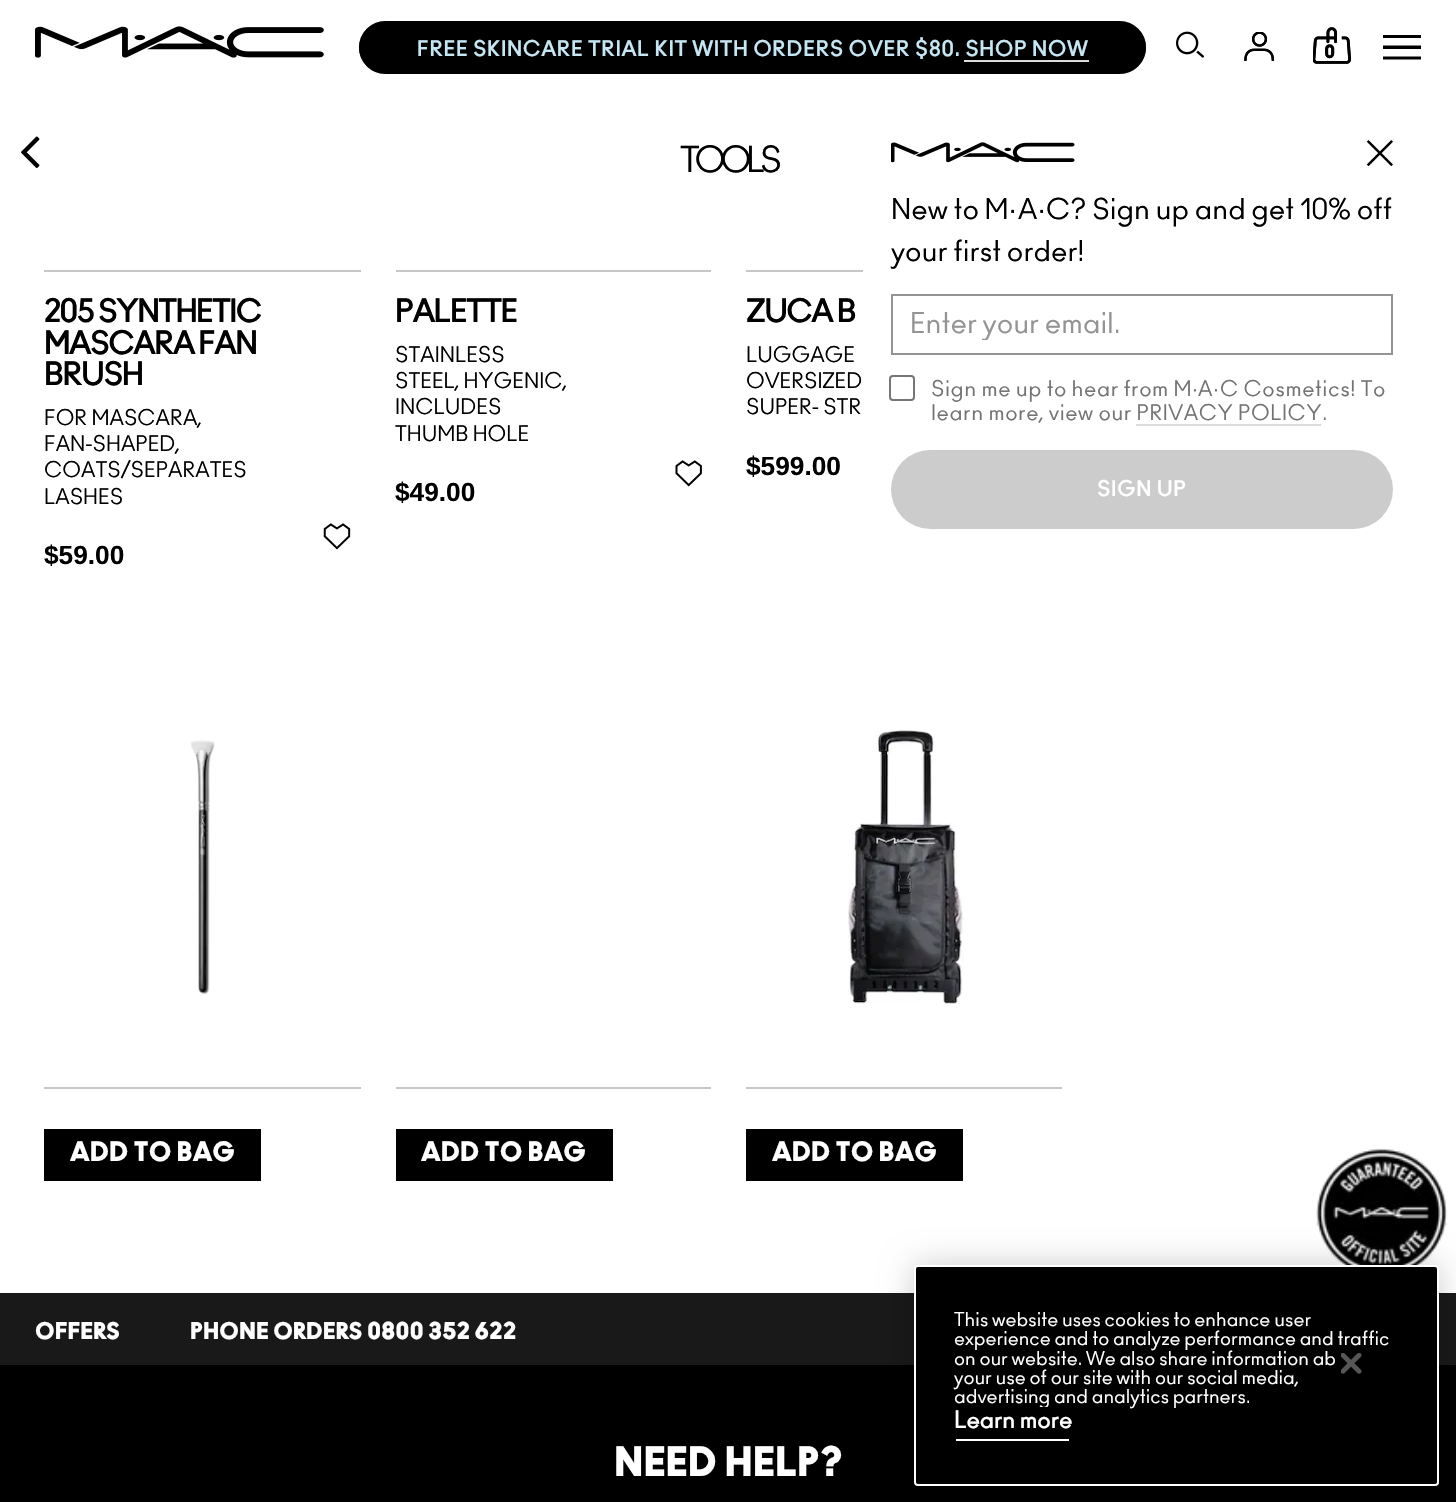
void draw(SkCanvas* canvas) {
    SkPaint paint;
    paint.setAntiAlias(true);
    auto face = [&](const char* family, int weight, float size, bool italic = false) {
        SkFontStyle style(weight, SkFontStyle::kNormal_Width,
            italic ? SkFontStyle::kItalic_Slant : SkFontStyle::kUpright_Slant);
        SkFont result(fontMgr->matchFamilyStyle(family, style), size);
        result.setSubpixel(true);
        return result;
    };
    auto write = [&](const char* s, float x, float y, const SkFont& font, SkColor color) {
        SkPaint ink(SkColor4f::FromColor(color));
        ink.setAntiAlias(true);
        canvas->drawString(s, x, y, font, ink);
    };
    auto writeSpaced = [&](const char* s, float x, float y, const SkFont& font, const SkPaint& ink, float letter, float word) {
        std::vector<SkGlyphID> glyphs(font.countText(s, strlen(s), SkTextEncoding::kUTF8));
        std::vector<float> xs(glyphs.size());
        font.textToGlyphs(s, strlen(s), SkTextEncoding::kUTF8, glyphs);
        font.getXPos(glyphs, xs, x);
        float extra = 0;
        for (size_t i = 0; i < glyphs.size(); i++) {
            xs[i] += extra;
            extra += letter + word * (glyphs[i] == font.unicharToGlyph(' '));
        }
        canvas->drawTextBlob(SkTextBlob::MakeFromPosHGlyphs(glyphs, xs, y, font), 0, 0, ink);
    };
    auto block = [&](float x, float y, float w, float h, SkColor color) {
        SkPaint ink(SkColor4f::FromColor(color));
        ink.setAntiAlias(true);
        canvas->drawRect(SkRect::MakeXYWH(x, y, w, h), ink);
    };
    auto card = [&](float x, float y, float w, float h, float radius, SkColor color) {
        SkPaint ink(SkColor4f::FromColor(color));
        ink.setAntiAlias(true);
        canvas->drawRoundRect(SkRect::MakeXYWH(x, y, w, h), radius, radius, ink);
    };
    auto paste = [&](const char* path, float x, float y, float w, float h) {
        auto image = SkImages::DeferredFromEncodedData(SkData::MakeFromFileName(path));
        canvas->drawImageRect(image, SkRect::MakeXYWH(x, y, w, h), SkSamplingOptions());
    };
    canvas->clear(SK_ColorWHITE);
    paste("pic1.png", 35, 26, 289, 32);
    card(359, 21, 787, 53, 26.5f, SK_ColorBLACK);
    {
        const SkColor colors[] = {SkColorSetARGB(230, 0, 0, 0), SkColorSetARGB(26, 0, 0, 0)};
        const float stops[] = {0, 1};
        const SkPoint ends[] = {{359, 47}, {394, 47}};
        paint.setShader(SkGradientShader::MakeLinear(ends, colors, stops, 2, SkTileMode::kClamp));
        paint.setAlpha(255);
    }
    canvas->drawPath(SkPathBuilder().moveTo(385.5f, 21).lineTo(394, 21).lineTo(394, 74).lineTo(385.5f, 74).cubicTo(371, 74, 359, 62, 359, 47.5f).cubicTo(359, 33, 371, 21, 385.5f, 21).close().detach(), paint);
    auto kFont1 = face("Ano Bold", 700, 21);
    paint.setShader(nullptr);
    paint.setColor(SkColorSetRGB(197, 231, 243));
    writeSpaced("FREE SKINCARE TRIAL KIT WITH ORDERS OVER $80. SHOP NOW", 417, 56, kFont1, paint, 0.53f, 0);
    block(964, 60, 125, 2, SkColorSetRGB(219, 219, 219));
    {
        const SkColor colors[] = {SkColorSetARGB(230, 0, 0, 0), SkColorSetARGB(26, 0, 0, 0)};
        const float stops[] = {0, 1};
        const SkPoint ends[] = {{1146, 47}, {1111, 47}};
        paint.setShader(SkGradientShader::MakeLinear(ends, colors, stops, 2, SkTileMode::kClamp));
        paint.setAlpha(255);
    }
    canvas->drawPath(SkPathBuilder().moveTo(1111, 21).lineTo(1119.5f, 21).cubicTo(1134, 21, 1146, 33, 1146, 47.5f).cubicTo(1146, 62, 1134, 74, 1119.5f, 74).lineTo(1111, 74).close().detach(), paint);
    paste("pic2.png", 1176, 31, 28, 27);
    paste("pic3.png", 1244, 32, 30, 29);
    paste("pic4.png", 1244, 32, 30, 29);
    paste("pic5.png", 1313, 27, 38, 37);
    paste("pic6.png", 1313, 27, 38, 37);
    auto kFont2 = face("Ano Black", 900, 18);
    write("0", 1324, 58, kFont2, SK_ColorBLACK);
    canvas->save();
    canvas->clipRect(SkRect::MakeXYWH(1383, 28, 38, 39));
    paint.setShader(nullptr);
    paint.setColor(SK_ColorBLACK);
    canvas->drawPath(SkPathBuilder().moveTo(1382.5f, 35).lineTo(1421, 35).lineTo(1421, 38).lineTo(1382.5f, 38).close().moveTo(1382.5f, 45.5f).lineTo(1421, 45.5f).lineTo(1421, 49).lineTo(1382.5f, 49).close().moveTo(1382.5f, 56.5f).lineTo(1421, 56.5f).lineTo(1421, 59.5f).lineTo(1382.5f, 59.5f).close().detach(), paint);
    canvas->restore();
    paste("pic7.png", 1367, 140, 26, 26);
    paste("pic8.png", 891, 142, 184, 21);
    auto kFont3 = face("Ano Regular", 400, 28);
    write("New to M", 891, 219, kFont3, SK_ColorBLACK);
    auto kFont4 = face("Liberation Sans", 400, 28);
    write("·", 1008, 219, kFont4, SK_ColorBLACK);
    write("A", 1018, 219, kFont3, SK_ColorBLACK);
    write("·", 1037, 219, kFont4, SK_ColorBLACK);
    write("C? Sign up and get 10% off", 1046, 219, kFont3, SK_ColorBLACK);
    write("your first order!", 891, 261, kFont3, SK_ColorBLACK);
    paint.setStyle(SkPaint::kStroke_Style);
    paint.setStrokeWidth(2);
    paint.setColor(SkColorSetRGB(148, 148, 148));
    canvas->drawRect(SkRect::MakeXYWH(892, 295, 500, 59), paint);
    canvas->save();
    canvas->clipRect(SkRect::MakeXYWH(910, 312, 464, 28));
    write("Enter your email.", 910, 333, kFont3, SkColorSetRGB(148, 148, 148));
    canvas->restore();
    paint.setColor(SkColorSetRGB(118, 118, 118));
    canvas->drawRoundRect(SkRect::MakeXYWH(890, 376, 24, 24), 3, 3, paint);
    auto kFont5 = face("Ano Regular", 400, 21);
    paint.setStyle(SkPaint::kFill_Style);
    paint.setColor(SkColorSetRGB(115, 115, 115));
    writeSpaced("Sign me up to hear from M", 931, 396, kFont5, paint, 0.53f, 0);
    auto kFont6 = face("Liberation Sans", 400, 21);
    writeSpaced("∙", 1192, 396, kFont6, paint, 0.53f, 0);
    writeSpaced("A", 1198, 396, kFont5, paint, 0.53f, 0);
    writeSpaced("∙", 1213, 396, kFont6, paint, 0.53f, 0);
    writeSpaced("C Cosmetics! To", 1220, 396, kFont5, paint, 0.53f, 0);
    writeSpaced("learn more, view our PRIVACY POLICY.", 931, 420, kFont5, paint, 0.53f, 0);
    block(1136, 424, 185, 2, SkColorSetRGB(219, 219, 219));
    card(891, 450, 502, 79, 39.5f, SkColorSetRGB(204, 204, 204));
    paint.setColor(SK_ColorWHITE);
    writeSpaced("SIGN UP", 1097, 496, kFont1, paint, 0.53f, 0);
    paste("pic9.png", 21, 136, 19, 32);
    auto kFont7 = face("Ano Regular", 400, 35);
    paint.setColor(SK_ColorBLACK);
    writeSpaced("TOOLS", 680, 172, kFont7, paint, -5.25f, 0);
    block(44, 270, 317, 2, SkColorSetRGB(199, 199, 199));
    auto kFont8 = face("Ano Bold", 700, 31.5f);
    writeSpaced("205 SYNTHETIC", 44, 322, kFont8, paint, -1.75f, 0);
    writeSpaced("MASCARA FAN", 44, 354, kFont8, paint, -1.75f, 0);
    writeSpaced("BRUSH", 44, 385, kFont8, paint, -1.75f, 0);
    write("FOR MASCARA,", 44, 425, kFont5, SK_ColorBLACK);
    write("FAN-SHAPED,", 44, 451, kFont5, SK_ColorBLACK);
    write("COATS/SEPARATES", 44, 477, kFont5, SK_ColorBLACK);
    write("LASHES", 44, 504, kFont5, SK_ColorBLACK);
    paste("pic10.png", 323, 523, 28, 27);
    auto kFont9 = face("Liberation Sans", 700, 26.25f);
    write("$59.00", 44, 564, kFont9, SK_ColorBLACK);
    paste("pic11.png", 190, 740, 25, 255);
    block(44, 1087, 317, 2, SkColorSetRGB(199, 199, 199));
    block(44, 1129, 217, 52, SK_ColorBLACK);
    auto kFont10 = face("Ano Black", 900, 26.25f);
    write("ADD TO BAG", 70, 1161, kFont10, SK_ColorWHITE);
    block(396, 270, 315, 2, SkColorSetRGB(199, 199, 199));
    writeSpaced("PALETTE", 395, 322, kFont8, paint, -1.75f, 0);
    write("STAINLESS", 395, 362, kFont5, SK_ColorBLACK);
    write("STEEL, HYGENIC,", 395, 388, kFont5, SK_ColorBLACK);
    write("INCLUDES", 395, 414, kFont5, SK_ColorBLACK);
    write("THUMB HOLE", 395, 441, kFont5, SK_ColorBLACK);
    paste("pic12.png", 675, 460, 27, 27);
    write("$49.00", 395, 501, kFont9, SK_ColorBLACK);
    block(396, 1087, 315, 2, SkColorSetRGB(199, 199, 199));
    block(396, 1129, 217, 52, SK_ColorBLACK);
    write("ADD TO BAG", 421, 1161, kFont10, SK_ColorWHITE);
    block(746, 270, 117, 2, SkColorSetRGB(199, 199, 199));
    writeSpaced("ZUCA B", 746, 322, kFont8, paint, -1.75f, 0);
    write("LUGGAGE", 746, 362, kFont5, SK_ColorBLACK);
    write("OVERSIZED", 746, 388, kFont5, SK_ColorBLACK);
    write("SUPER- STR", 746, 414, kFont5, SK_ColorBLACK);
    write("$599.00", 746, 475, kFont9, SK_ColorBLACK);
    paste("pic13.png", 848, 729, 116, 275);
    block(746, 1087, 316, 2, SkColorSetRGB(199, 199, 199));
    block(746, 1129, 217, 52, SK_ColorBLACK);
    write("ADD TO BAG", 772, 1161, kFont10, SK_ColorWHITE);
    block(1316, 1223, 131, 2, SkColorSetRGB(219, 219, 219));
    paste("pic14.png", 1316, 1148, 132, 117);
    block(0, 1293, 1456, 72, SkColorSetRGB(25, 25, 25));
    auto kFont11 = face("Ano Black", 900, 22.75f);
    write("OFFERS", 35, 1339, kFont11, SK_ColorWHITE);
    write("PHONE ORDERS 0800 352 622", 190, 1339, kFont11, SK_ColorWHITE);
    block(0, 1365, 1456, 137, SK_ColorBLACK);
    auto kFont12 = face("Ano Black", 900, 39.5f);
    write("NEED HELP?", 614, 1476, kFont12, SK_ColorWHITE);
    paint.setColor(SkColorSetARGB(51, 0, 0, 0));
    paint.setMaskFilter(SkMaskFilter::MakeBlur(kNormal_SkBlurStyle, 16));
    canvas->drawRoundRect(SkRect::MakeXYWH(914, 1265, 525, 221), 4, 4, paint);
    paint.setMaskFilter(nullptr);
    paint.setColor(SK_ColorBLACK);
    canvas->drawRoundRect(SkRect::MakeXYWH(915, 1266, 523, 219), 3, 3, paint);
    paint.setStyle(SkPaint::kStroke_Style);
    paint.setColor(SK_ColorWHITE);
    canvas->drawRoundRect(SkRect::MakeXYWH(915, 1266, 523, 219), 3, 3, paint);
    auto kFont13 = face("Ano Regular", 400, 18.7f);
    write("This website uses cookies to enhance user", 954, 1326, kFont13, SK_ColorWHITE);
    write("experience and to analyze performance and traffic", 954, 1345, kFont13, SK_ColorWHITE);
    write("on our website. We also share information ab", 954, 1365, kFont13, SK_ColorWHITE);
    write("your use of our site with our social media,", 954, 1384, kFont13, SK_ColorWHITE);
    write("advertising and analytics partners.", 954, 1403, kFont13, SK_ColorWHITE);
    paste("pic15.png", 1341, 1353, 21, 21);
    card(954, 1407, 117, 33, 4, SK_ColorBLACK);
    block(956, 1439, 113, 2, SK_ColorWHITE);
    auto kFont14 = face("Ano Regular", 700, 22.75f);
    write("Learn more", 954, 1428, kFont14, SK_ColorWHITE);
}
